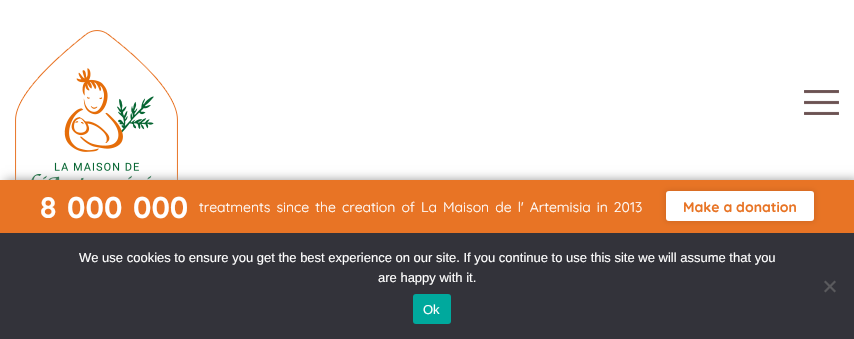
void draw(SkCanvas* canvas) {
    SkPaint paint;
    paint.setAntiAlias(true);
    auto face = [&](const char* family, int weight, float size, bool italic = false) {
        SkFontStyle style(weight, SkFontStyle::kNormal_Width,
            italic ? SkFontStyle::kItalic_Slant : SkFontStyle::kUpright_Slant);
        SkFont result(fontMgr->matchFamilyStyle(family, style), size);
        result.setSubpixel(true);
        return result;
    };
    auto write = [&](const char* s, float x, float y, const SkFont& font, SkColor color) {
        SkPaint ink(SkColor4f::FromColor(color));
        ink.setAntiAlias(true);
        canvas->drawString(s, x, y, font, ink);
    };
    auto writeSpaced = [&](const char* s, float x, float y, const SkFont& font, const SkPaint& ink, float letter, float word) {
        std::vector<SkGlyphID> glyphs(font.countText(s, strlen(s), SkTextEncoding::kUTF8));
        std::vector<float> xs(glyphs.size());
        font.textToGlyphs(s, strlen(s), SkTextEncoding::kUTF8, glyphs);
        font.getXPos(glyphs, xs, x);
        float extra = 0;
        for (size_t i = 0; i < glyphs.size(); i++) {
            xs[i] += extra;
            extra += letter + word * (glyphs[i] == font.unicharToGlyph(' '));
        }
        canvas->drawTextBlob(SkTextBlob::MakeFromPosHGlyphs(glyphs, xs, y, font), 0, 0, ink);
    };
    auto block = [&](float x, float y, float w, float h, SkColor color) {
        SkPaint ink(SkColor4f::FromColor(color));
        ink.setAntiAlias(true);
        canvas->drawRect(SkRect::MakeXYWH(x, y, w, h), ink);
    };
    auto card = [&](float x, float y, float w, float h, float radius, SkColor color) {
        SkPaint ink(SkColor4f::FromColor(color));
        ink.setAntiAlias(true);
        canvas->drawRoundRect(SkRect::MakeXYWH(x, y, w, h), radius, radius, ink);
    };
    auto paste = [&](const char* path, float x, float y, float w, float h) {
        auto image = SkImages::DeferredFromEncodedData(SkData::MakeFromFileName(path));
        canvas->drawImageRect(image, SkRect::MakeXYWH(x, y, w, h), SkSamplingOptions());
    };
    canvas->clear(SK_ColorWHITE);
    paste("pic1.png", 15, 30, 163, 150);
    paste("pic2.png", 804, 90, 35, 25);
    paint.setColor(SkColorSetRGB(153, 153, 153));
    paint.setMaskFilter(SkMaskFilter::MakeBlur(kNormal_SkBlurStyle, 5));
    canvas->drawRect(SkRect::MakeXYWH(5, 180, 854, 53), paint);
    paint.setMaskFilter(nullptr);
    block(0, 180, 854, 53, SkColorSetRGB(232, 116, 37));
    auto kFont1 = face("Quicksand", 700, 30);
    paint.setColor(SK_ColorWHITE);
    writeSpaced("8 000 000", 40, 218, kFont1, paint, 0, 2.25f);
    auto kFont2 = face("Quicksand", 400, 14);
    writeSpaced("treatments since the creation of", 199, 212, kFont2, paint, 0, 2.25f);
    writeSpaced("La Maison de l' Artemisia in 2013", 421, 212, kFont2, paint, 0, 2.25f);
    paint.setColor(SkColorSetARGB(26, 0, 0, 0));
    paint.setMaskFilter(SkMaskFilter::MakeBlur(kNormal_SkBlurStyle, 2.5f));
    canvas->drawRoundRect(SkRect::MakeXYWH(665, 190, 150, 32), 4, 4, paint);
    paint.setMaskFilter(nullptr);
    card(666, 191, 148, 30, 3, SK_ColorWHITE);
    auto kFont3 = face("Quicksand", 700, 14);
    write("Make a donation", 683, 212, kFont3, SkColorSetRGB(232, 116, 37));
    block(0, 233, 854, 106, SkColorSetRGB(51, 51, 58));
    auto kFont4 = face("Liberation Sans", 400, 13);
    write("We use cookies to ensure you get the best experience on our site. If you continue to use this site we will assume that you", 79, 262, kFont4, SK_ColorWHITE);
    write("are happy with it.", 378, 282, kFont4, SK_ColorWHITE);
    paint.setColor(SkColorSetRGB(90, 90, 93));
    canvas->drawPath(SkPathBuilder().moveTo(834.5f, 280.5f).lineTo(836, 282).lineTo(825.5f, 292.5f).lineTo(824, 291).close().detach(), paint);
    canvas->drawPath(SkPathBuilder().moveTo(824, 282).lineTo(825.5f, 280.5f).lineTo(836, 291).lineTo(834.5f, 292.5f).close().detach(), paint);
    card(413, 294, 38, 30, 3, SkColorSetRGB(0, 169, 157));
    write("Ok", 423, 314, kFont4, SK_ColorWHITE);
}
